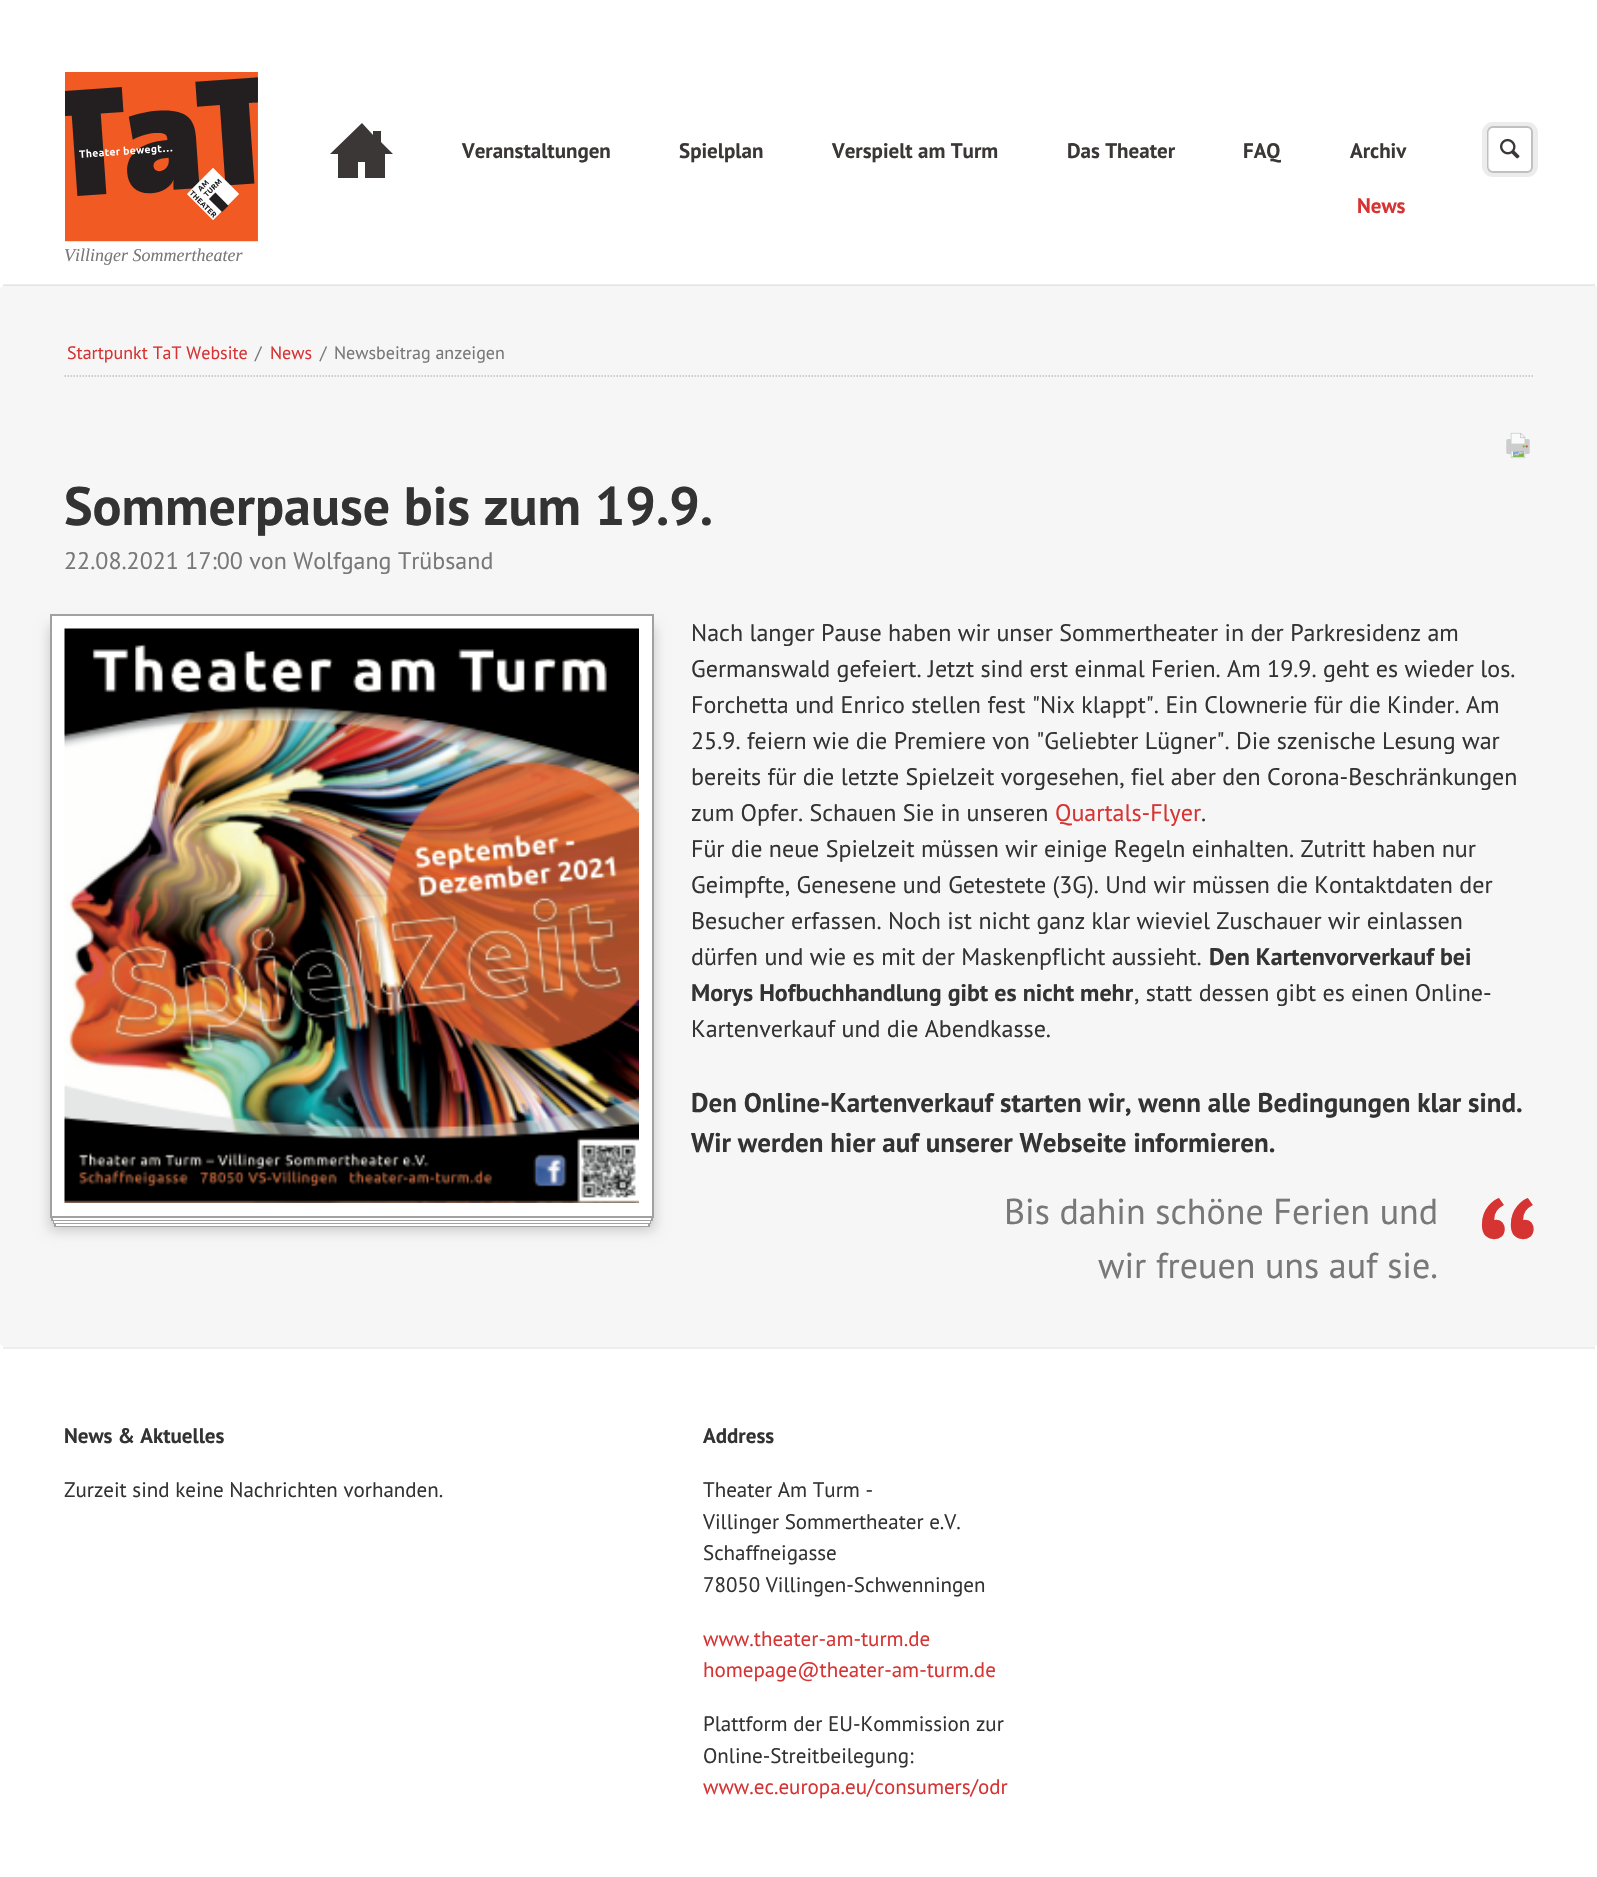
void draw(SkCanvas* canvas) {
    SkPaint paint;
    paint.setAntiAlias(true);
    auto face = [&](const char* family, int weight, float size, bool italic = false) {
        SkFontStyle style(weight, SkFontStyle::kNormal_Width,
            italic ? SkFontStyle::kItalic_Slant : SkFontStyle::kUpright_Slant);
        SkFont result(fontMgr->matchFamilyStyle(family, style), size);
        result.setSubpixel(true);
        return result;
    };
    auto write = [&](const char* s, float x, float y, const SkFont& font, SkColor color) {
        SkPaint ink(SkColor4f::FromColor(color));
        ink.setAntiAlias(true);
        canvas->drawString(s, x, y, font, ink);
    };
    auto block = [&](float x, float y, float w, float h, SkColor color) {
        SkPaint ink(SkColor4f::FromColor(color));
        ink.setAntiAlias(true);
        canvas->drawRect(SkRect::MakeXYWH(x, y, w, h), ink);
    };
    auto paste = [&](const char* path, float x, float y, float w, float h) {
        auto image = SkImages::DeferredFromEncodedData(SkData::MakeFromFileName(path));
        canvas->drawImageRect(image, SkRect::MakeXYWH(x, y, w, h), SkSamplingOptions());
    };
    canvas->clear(SK_ColorWHITE);
    paint.setColor(SkColorSetRGB(59, 55, 55));
    canvas->drawPath(SkPathBuilder().moveTo(393, 154).lineTo(381, 142).lineTo(381, 131).lineTo(373, 131).lineTo(373, 135).lineTo(362, 123).lineTo(330, 154).lineTo(338, 154).lineTo(338, 178).lineTo(358, 178).lineTo(358, 162).lineTo(365, 162).lineTo(365, 178).lineTo(385, 178).lineTo(385, 154).close().detach(), paint);
    auto kFont1 = face("PT Sans", 700, 21);
    write("Veranstaltungen", 462, 158, kFont1, SkColorSetRGB(59, 55, 55));
    write("Spielplan", 679, 158, kFont1, SkColorSetRGB(59, 55, 55));
    write("Verspielt am Turm", 832, 158, kFont1, SkColorSetRGB(59, 55, 55));
    write("Das Theater", 1067, 158, kFont1, SkColorSetRGB(59, 55, 55));
    write("FAQ", 1243, 158, kFont1, SkColorSetRGB(59, 55, 55));
    write("Archiv", 1350, 158, kFont1, SkColorSetRGB(59, 55, 55));
    write("News", 1357, 213, kFont1, SkColorSetRGB(214, 51, 51));
    paint.setStyle(SkPaint::kStroke_Style);
    paint.setStrokeWidth(5);
    paint.setColor(SkColorSetRGB(236, 236, 236));
    canvas->drawRoundRect(SkRect::MakeXYWH(1484.5f, 124.5f, 51, 50), 8.5f, 8.5f, paint);
    paint.setStyle(SkPaint::kFill_Style);
    paint.setColor(SK_ColorWHITE);
    canvas->drawRoundRect(SkRect::MakeXYWH(1488, 127, 44, 45), 5, 5, paint);
    paint.setStyle(SkPaint::kStroke_Style);
    paint.setStrokeWidth(2);
    paint.setColor(SkColorSetRGB(192, 192, 192));
    canvas->drawRoundRect(SkRect::MakeXYWH(1488, 127, 44, 45), 5, 5, paint);
    canvas->save();
    canvas->clipPath(SkPathBuilder().moveTo(1493, 128).lineTo(1527, 128).cubicTo(1530, 128, 1532, 130, 1532, 133).lineTo(1532, 166).cubicTo(1532, 169, 1530, 171, 1527, 171).lineTo(1493, 171).cubicTo(1490, 171, 1488, 169, 1488, 166).lineTo(1488, 133).cubicTo(1488, 130, 1490, 128, 1493, 128).close().detach(), true);
    block(1488, 128, 1, 43, SkColorSetRGB(224, 224, 224));
    canvas->restore();
    paste("pic1.png", 1500, 138, 20, 21);
    paste("pic2.png", 65, 72, 193, 170);
    auto kFont2 = face("Liberation Serif", 400, 18, true);
    write("Villinger Sommertheater", 64, 261, kFont2, SkColorSetRGB(120, 120, 120));
    paint.setStyle(SkPaint::kFill_Style);
    paint.setColor(SkColorSetRGB(246, 246, 246));
    canvas->drawPath(SkPathBuilder().moveTo(6, 285).lineTo(1592, 285).cubicTo(1595, 285, 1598, 287, 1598, 290).lineTo(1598, 1342).cubicTo(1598, 1345, 1595, 1347, 1592, 1347).lineTo(6, 1347).cubicTo(3, 1347, 0, 1345, 0, 1342).lineTo(0, 290).cubicTo(0, 287, 3, 285, 6, 285).close().detach(), paint);
    block(3, 284, 1592, 2, SkColorSetARGB(18, 0, 0, 0));
    block(3, 1347, 1592, 2, SkColorSetRGB(237, 237, 237));
    paint.setStyle(SkPaint::kStroke_Style);
    paint.setStrokeWidth(1.5f);
    paint.setColor(SkColorSetRGB(192, 192, 192));
    paint.setPathEffect(SkDashPathEffect::Make({{1.5f, 1.5f}}, 0));
    canvas->drawPath(SkPathBuilder().moveTo(64.5f, 376).lineTo(1533, 376).detach(), paint);
    paint.setPathEffect(nullptr);
    auto kFont3 = face("PT Sans", 400, 18);
    write("Startpunkt TaT Website", 67, 359, kFont3, SkColorSetRGB(214, 51, 51));
    write("/", 255, 359, kFont3, SkColorSetRGB(120, 120, 120));
    write("News", 270, 359, kFont3, SkColorSetRGB(214, 51, 51));
    write("/", 320, 359, kFont3, SkColorSetRGB(120, 120, 120));
    write("Newsbeitrag anzeigen", 334, 359, kFont3, SkColorSetRGB(120, 120, 120));
    paste("pic3.png", 1506, 432, 24, 27);
    auto kFont4 = face("PT Sans", 700, 54);
    write("Sommerpause bis zum 19.9.", 64, 525, kFont4, SkColorSetRGB(51, 51, 51));
    auto kFont5 = face("PT Sans", 400, 24);
    write("22.08.2021 17:00 von Wolfgang Trübsand", 64, 569, kFont5, SkColorSetRGB(120, 120, 120));
    paint.setStyle(SkPaint::kFill_Style);
    paint.setColor(SkColorSetARGB(51, 0, 0, 0));
    paint.setMaskFilter(SkMaskFilter::MakeBlur(kNormal_SkBlurStyle, 6));
    canvas->drawRect(SkRect::MakeXYWH(50, 626, 604, 604), paint);
    paint.setMaskFilter(nullptr);
    block(54, 1224, 596, 3, SkColorSetRGB(161, 161, 161));
    block(56, 1224, 592, 2, SK_ColorWHITE);
    block(53, 1221, 598, 3, SkColorSetRGB(161, 161, 161));
    block(54, 1221, 596, 2, SK_ColorWHITE);
    block(51, 1218, 602, 3, SkColorSetRGB(161, 161, 161));
    block(53, 1218, 598, 2, SK_ColorWHITE);
    paint.setColor(SK_ColorWHITE);
    canvas->drawRect(SkRect::MakeXYWH(51, 615, 602, 602), paint);
    paint.setStyle(SkPaint::kStroke_Style);
    paint.setStrokeWidth(2);
    paint.setColor(SkColorSetRGB(161, 161, 161));
    canvas->drawRect(SkRect::MakeXYWH(51, 615, 602, 602), paint);
    paste("pic4.png", 64, 628, 575, 575);
    write("Nach langer Pause haben wir unser Sommertheater in der Parkresidenz am", 691, 641, kFont5, SkColorSetRGB(51, 51, 51));
    write("Germanswald gefeiert. Jetzt sind erst einmal Ferien. Am 19.9. geht es wieder los.", 691, 677, kFont5, SkColorSetRGB(51, 51, 51));
    write("Forchetta und Enrico stellen fest \"Nix klappt\". Ein Clownerie für die Kinder. Am", 691, 713, kFont5, SkColorSetRGB(51, 51, 51));
    write("25.9. feiern wie die Premiere von \"Geliebter Lügner\". Die szenische Lesung war", 691, 749, kFont5, SkColorSetRGB(51, 51, 51));
    write("bereits für die letzte Spielzeit vorgesehen, fiel aber den Corona-Beschränkungen", 691, 785, kFont5, SkColorSetRGB(51, 51, 51));
    write("zum Opfer. Schauen Sie in unseren", 691, 821, kFont5, SkColorSetRGB(51, 51, 51));
    write("Quartals-Flyer", 1055, 821, kFont5, SkColorSetRGB(214, 51, 51));
    write(".", 1201, 821, kFont5, SkColorSetRGB(51, 51, 51));
    write("Für die neue Spielzeit müssen wir einige Regeln einhalten. Zutritt haben nur", 691, 857, kFont5, SkColorSetRGB(51, 51, 51));
    write("Geimpfte, Genesene und Getestete (3G). Und wir müssen die Kontaktdaten der", 691, 893, kFont5, SkColorSetRGB(51, 51, 51));
    write("Besucher erfassen. Noch ist nicht ganz klar wieviel Zuschauer wir einlassen", 691, 929, kFont5, SkColorSetRGB(51, 51, 51));
    write("dürfen und wie es mit der Maskenpflicht aussieht.", 691, 965, kFont5, SkColorSetRGB(51, 51, 51));
    auto kFont6 = face("PT Sans", 700, 24);
    write("Den Kartenvorverkauf bei", 1209, 965, kFont6, SkColorSetRGB(51, 51, 51));
    write("Morys Hofbuchhandlung gibt es nicht mehr", 691, 1001, kFont6, SkColorSetRGB(51, 51, 51));
    write(", statt dessen gibt es einen Online-", 1134, 1001, kFont5, SkColorSetRGB(51, 51, 51));
    write("Kartenverkauf und die Abendkasse.", 691, 1037, kFont5, SkColorSetRGB(51, 51, 51));
    auto kFont7 = face("PT Sans", 700, 27);
    write("Den Online-Kartenverkauf starten wir, wenn alle Bedingungen klar sind.", 691, 1112, kFont7, SkColorSetRGB(51, 51, 51));
    write("Wir werden hier auf unserer Webseite informieren.", 691, 1152, kFont7, SkColorSetRGB(51, 51, 51));
    auto kFont8 = face("PT Sans", 400, 36);
    write("Bis dahin schöne Ferien und", 1004, 1224, kFont8, SkColorSetRGB(120, 120, 120));
    write("wir freuen uns auf sie.", 1098, 1278, kFont8, SkColorSetRGB(120, 120, 120));
    auto kFont9 = face("PT Sans", 400, 198);
    write("“", 1474, 1352, kFont9, SkColorSetRGB(214, 51, 51));
    write("News & Aktuelles", 64, 1443, kFont1, SkColorSetRGB(51, 51, 51));
    auto kFont10 = face("PT Sans", 400, 21);
    write("Zurzeit sind keine Nachrichten vorhanden.", 64, 1497, kFont10, SkColorSetRGB(51, 51, 51));
    write("Address", 703, 1443, kFont1, SkColorSetRGB(51, 51, 51));
    write("Theater Am Turm -", 703, 1497, kFont10, SkColorSetRGB(51, 51, 51));
    write("Villinger Sommertheater e.V.", 703, 1529, kFont10, SkColorSetRGB(51, 51, 51));
    write("Schaffneigasse", 703, 1560, kFont10, SkColorSetRGB(51, 51, 51));
    write("78050 Villingen-Schwenningen", 703, 1592, kFont10, SkColorSetRGB(51, 51, 51));
    write("www.theater-am-turm.de", 703, 1646, kFont10, SkColorSetRGB(214, 51, 51));
    write("homepage@theater-am-turm.de", 703, 1677, kFont10, SkColorSetRGB(214, 51, 51));
    write("Plattform der EU-Kommission zur", 703, 1731, kFont10, SkColorSetRGB(51, 51, 51));
    write("Online-Streitbeilegung:", 703, 1763, kFont10, SkColorSetRGB(51, 51, 51));
    write("www.ec.europa.eu/consumers/odr", 703, 1794, kFont10, SkColorSetRGB(214, 51, 51));
}
